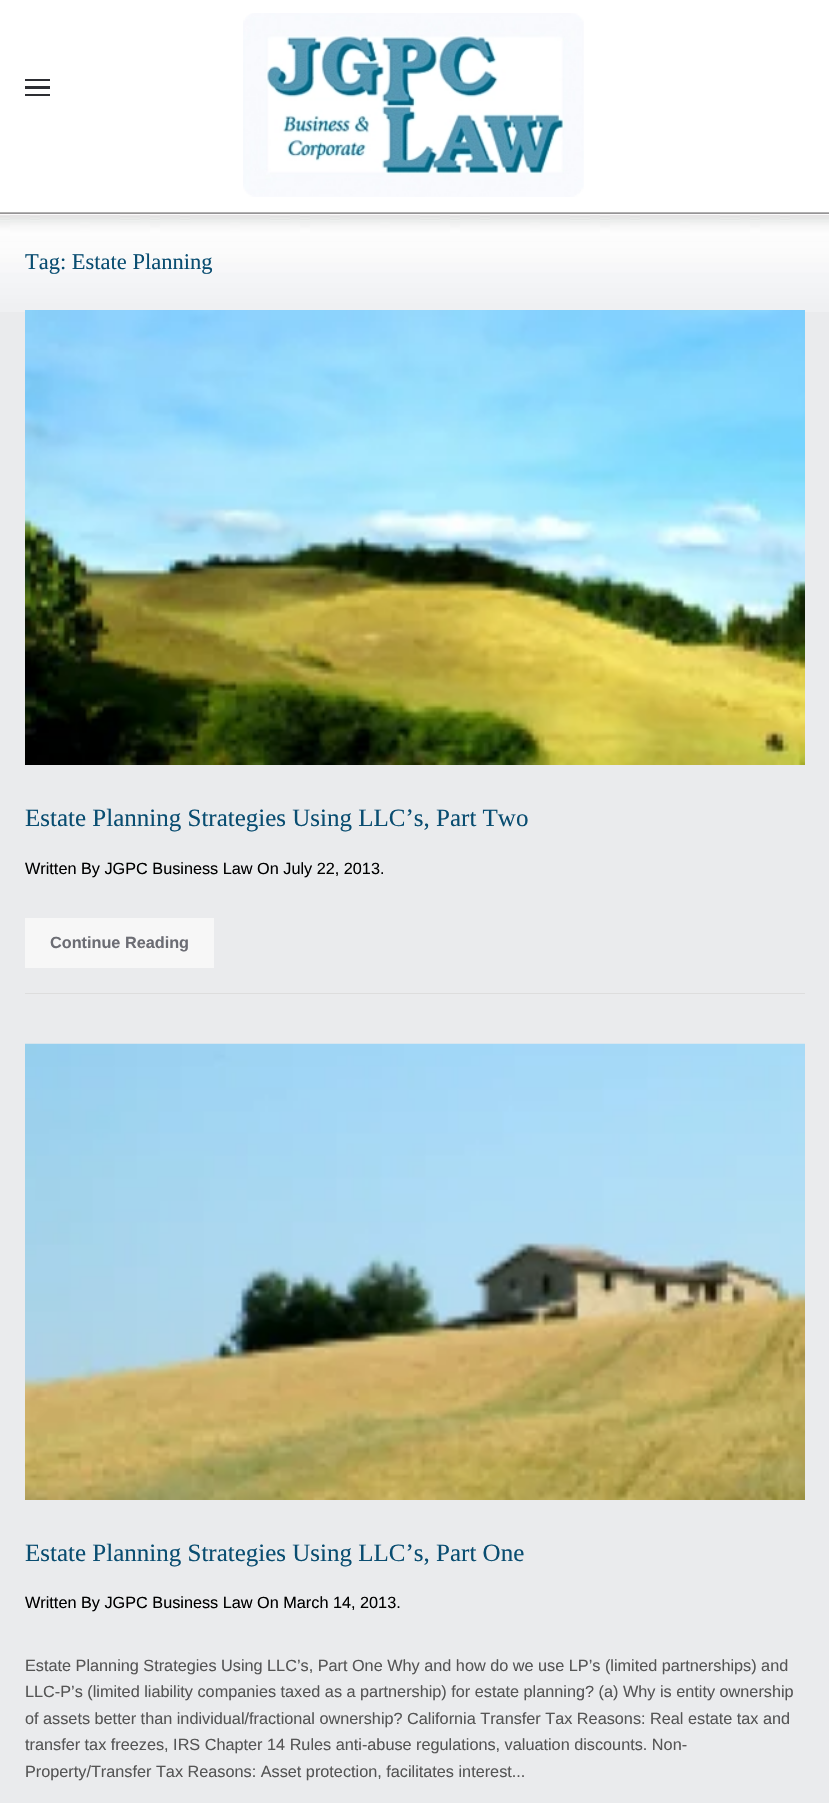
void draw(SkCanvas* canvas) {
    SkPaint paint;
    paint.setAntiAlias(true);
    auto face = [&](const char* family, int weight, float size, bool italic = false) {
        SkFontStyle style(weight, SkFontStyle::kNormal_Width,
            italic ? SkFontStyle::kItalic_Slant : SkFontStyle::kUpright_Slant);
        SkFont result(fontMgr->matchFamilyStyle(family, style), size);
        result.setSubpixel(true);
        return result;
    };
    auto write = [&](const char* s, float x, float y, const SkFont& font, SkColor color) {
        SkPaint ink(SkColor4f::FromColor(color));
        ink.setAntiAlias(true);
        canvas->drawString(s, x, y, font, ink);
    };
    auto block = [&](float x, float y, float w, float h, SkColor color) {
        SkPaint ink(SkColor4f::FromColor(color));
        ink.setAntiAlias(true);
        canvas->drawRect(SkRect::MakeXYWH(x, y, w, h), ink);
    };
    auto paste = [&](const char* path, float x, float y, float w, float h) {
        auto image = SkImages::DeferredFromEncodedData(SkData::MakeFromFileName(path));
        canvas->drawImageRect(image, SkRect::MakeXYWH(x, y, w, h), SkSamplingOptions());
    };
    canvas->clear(SK_ColorWHITE);
    block(25, 79, 25, 2, SkColorSetRGB(45, 46, 51));
    block(25, 86, 25, 3, SkColorSetRGB(45, 46, 51));
    block(25, 94, 25, 2, SkColorSetRGB(45, 46, 51));
    paste("pic1.png", 243, 13, 341, 184);
    block(0, 312, 829, 1491, SkColorSetRGB(234, 235, 237));
    paste("pic2.png", 0, 212, 829, 100);
    auto kFont1 = face("Liberation Serif", 400, 22.5f);
    write("Tag: Estate Planning", 25, 269, kFont1, SkColorSetRGB(9, 77, 113));
    block(25, 993, 780, 1, SkColorSetRGB(221, 221, 221));
    paste("pic3.png", 25, 310, 780, 455);
    auto kFont2 = face("Liberation Serif", 400, 25);
    write("Estate Planning Strategies Using LLC’s, Part Two", 25, 826, kFont2, SkColorSetRGB(9, 77, 113));
    auto kFont3 = face("Liberation Sans", 400, 16.25f);
    write("Written By JGPC Business Law On July 22, 2013.", 25, 874, kFont3, SK_ColorBLACK);
    block(25, 918, 189, 50, SkColorSetRGB(247, 247, 247));
    auto kFont4 = face("Liberation Sans", 700, 16.25f);
    write("Continue Reading", 50, 948, kFont4, SkColorSetRGB(108, 109, 116));
    paste("pic4.png", 25, 1043, 780, 457);
    write("Estate Planning Strategies Using LLC’s, Part One", 25, 1561, kFont2, SkColorSetRGB(9, 77, 113));
    write("Written By JGPC Business Law On March 14, 2013.", 25, 1608, kFont3, SK_ColorBLACK);
    write("Estate Planning Strategies Using LLC’s, Part One Why and how do we use LP’s (limited partnerships) and", 25, 1671, kFont3, SkColorSetRGB(85, 85, 85));
    write("LLC-P’s (limited liability companies taxed as a partnership) for estate planning? (a) Why is entity ownership", 25, 1697, kFont3, SkColorSetRGB(85, 85, 85));
    write("of assets better than individual/fractional ownership? California Transfer Tax Reasons: Real estate tax and", 25, 1724, kFont3, SkColorSetRGB(85, 85, 85));
    write("transfer tax freezes, IRS Chapter 14 Rules anti-abuse regulations, valuation discounts. Non-", 25, 1750, kFont3, SkColorSetRGB(85, 85, 85));
    write("Property/Transfer Tax Reasons: Asset protection, facilitates interest...", 25, 1777, kFont3, SkColorSetRGB(85, 85, 85));
}
